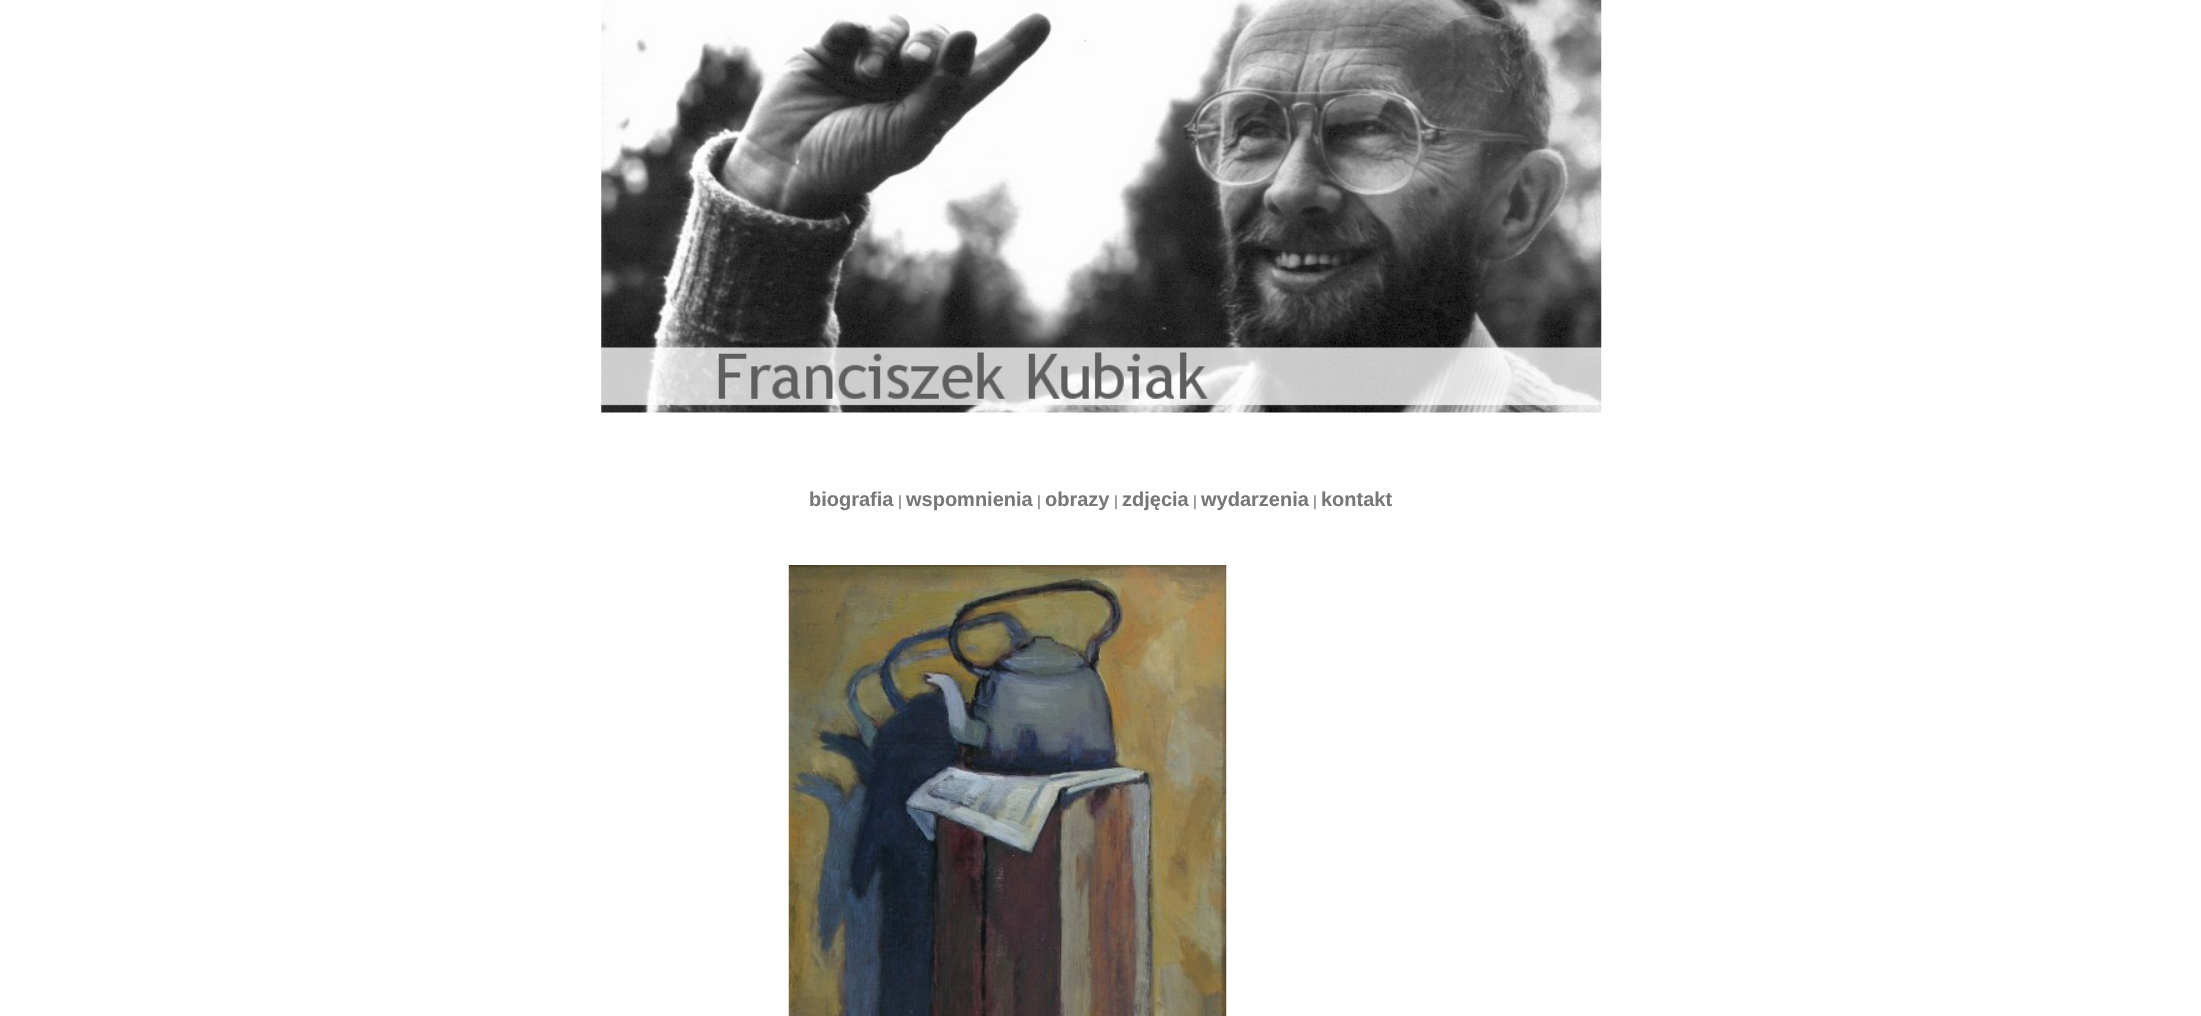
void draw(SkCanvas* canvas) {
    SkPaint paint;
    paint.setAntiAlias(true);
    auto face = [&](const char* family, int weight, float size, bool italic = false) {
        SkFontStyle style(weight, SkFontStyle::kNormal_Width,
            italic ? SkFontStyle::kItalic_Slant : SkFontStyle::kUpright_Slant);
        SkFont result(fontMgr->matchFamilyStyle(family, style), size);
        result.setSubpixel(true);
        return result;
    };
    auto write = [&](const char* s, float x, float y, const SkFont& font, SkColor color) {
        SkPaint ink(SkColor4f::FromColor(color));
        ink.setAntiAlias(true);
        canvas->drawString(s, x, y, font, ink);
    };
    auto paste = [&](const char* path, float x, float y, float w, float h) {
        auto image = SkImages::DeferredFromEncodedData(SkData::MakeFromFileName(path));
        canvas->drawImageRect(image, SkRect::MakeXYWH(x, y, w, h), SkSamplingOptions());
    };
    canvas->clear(SK_ColorWHITE);
    paste("pic1.png", 601, 0, 1001, 413);
    auto kFont1 = face("Liberation Sans", 700, 20);
    write("biografia", 809, 506, kFont1, SkColorSetRGB(119, 119, 119));
    auto kFont2 = face("Liberation Sans", 400, 15);
    write("|", 898, 506, kFont2, SkColorSetRGB(119, 119, 119));
    write("wspomnienia", 906, 506, kFont1, SkColorSetRGB(119, 119, 119));
    write("|", 1037, 506, kFont2, SkColorSetRGB(119, 119, 119));
    write("obrazy", 1045, 506, kFont1, SkColorSetRGB(119, 119, 119));
    write("|", 1114, 506, kFont2, SkColorSetRGB(119, 119, 119));
    write("zdjęcia", 1122, 506, kFont1, SkColorSetRGB(119, 119, 119));
    write("|", 1193, 506, kFont2, SkColorSetRGB(119, 119, 119));
    write("wydarzenia", 1201, 506, kFont1, SkColorSetRGB(119, 119, 119));
    write("|", 1313, 506, kFont2, SkColorSetRGB(119, 119, 119));
    write("kontakt", 1321, 506, kFont1, SkColorSetRGB(119, 119, 119));
    paste("pic2.png", 788, 565, 439, 451);
}
